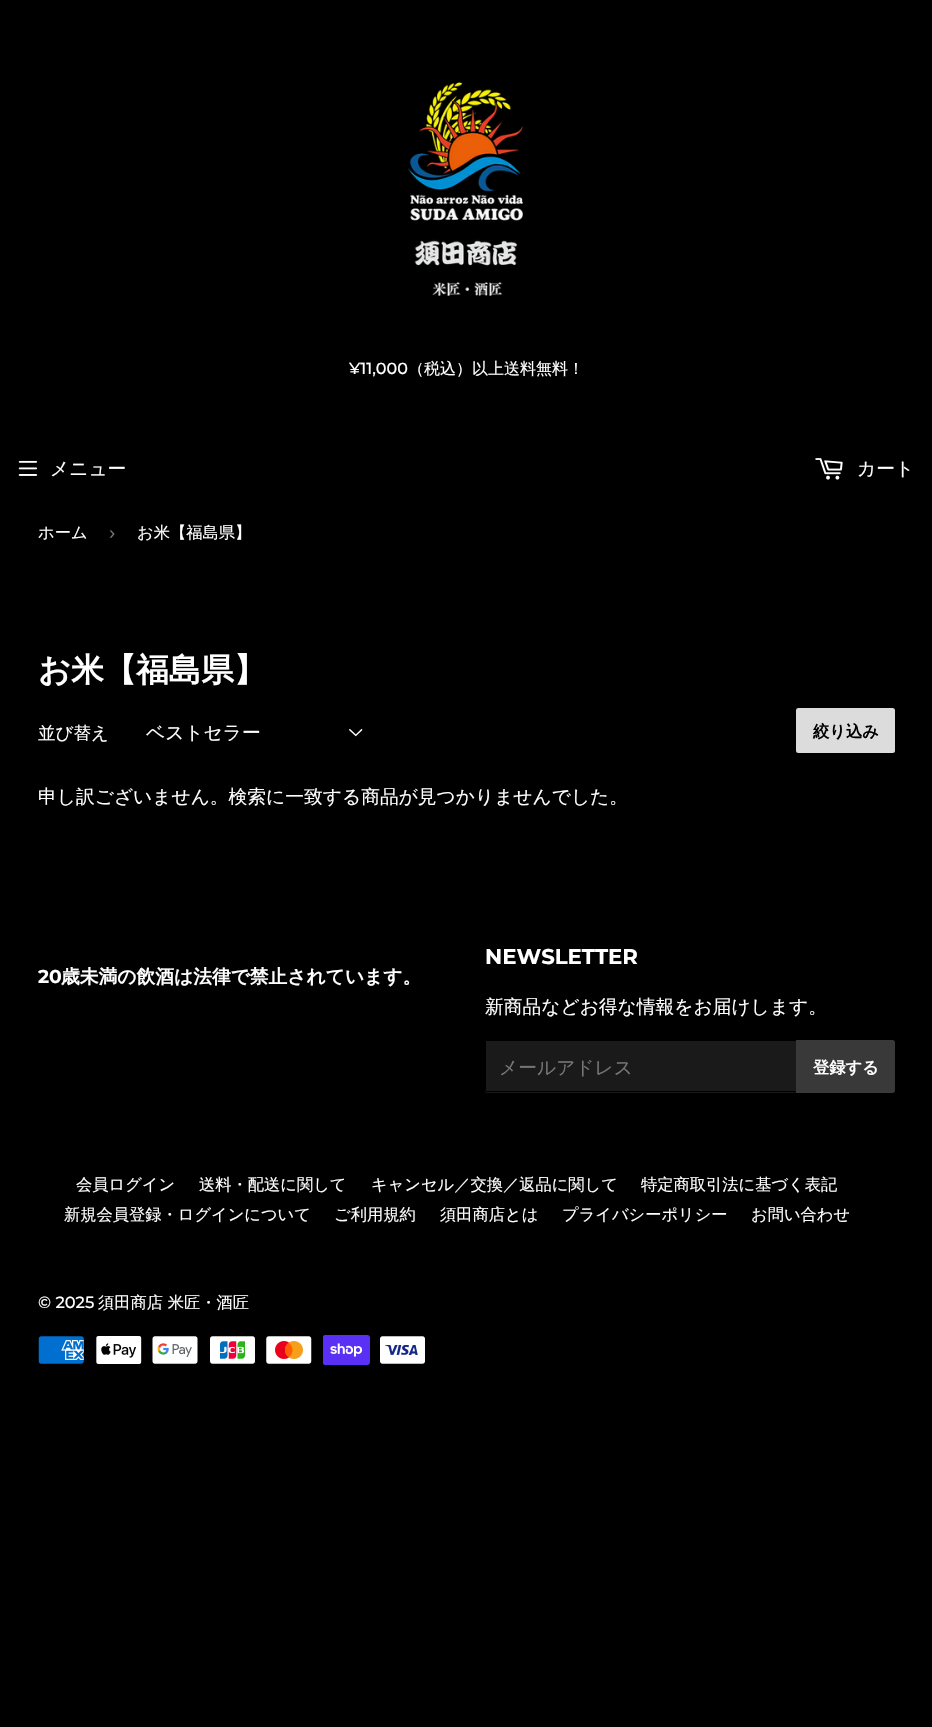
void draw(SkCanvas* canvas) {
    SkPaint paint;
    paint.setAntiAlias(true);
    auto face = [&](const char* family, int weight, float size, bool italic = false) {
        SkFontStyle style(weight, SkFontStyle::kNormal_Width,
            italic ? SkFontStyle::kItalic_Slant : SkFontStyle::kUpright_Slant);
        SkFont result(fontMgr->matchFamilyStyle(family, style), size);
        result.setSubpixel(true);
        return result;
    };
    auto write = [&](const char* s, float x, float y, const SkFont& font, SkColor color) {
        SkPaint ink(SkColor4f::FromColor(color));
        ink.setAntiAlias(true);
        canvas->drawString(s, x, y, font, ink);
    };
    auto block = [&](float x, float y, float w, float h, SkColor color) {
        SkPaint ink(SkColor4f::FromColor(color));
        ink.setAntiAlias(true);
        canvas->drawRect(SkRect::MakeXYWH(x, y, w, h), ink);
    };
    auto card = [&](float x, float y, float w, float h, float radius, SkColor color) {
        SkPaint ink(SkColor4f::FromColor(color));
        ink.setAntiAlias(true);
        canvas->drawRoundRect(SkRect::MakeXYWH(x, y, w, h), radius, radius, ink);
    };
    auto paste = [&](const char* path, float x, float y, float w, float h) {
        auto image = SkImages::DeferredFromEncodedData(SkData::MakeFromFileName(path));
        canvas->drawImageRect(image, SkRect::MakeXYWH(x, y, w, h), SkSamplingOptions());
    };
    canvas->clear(SK_ColorBLACK);
    paste("pic1.png", 407, 82, 116, 214);
    auto kFont1 = face("Montserrat", 500, 16);
    write("¥11,000", 349, 374, kFont1, SK_ColorWHITE);
    auto kFont2 = face("WenQuanYi Zen Hei", 500, 16);
    write("（税込）以上送料無料！", 408, 374, kFont2, SK_ColorWHITE);
    paste("pic2.png", 18, 460, 20, 16);
    auto kFont3 = face("WenQuanYi Zen Hei", 500, 18.75f);
    write("メニュー", 50, 475, kFont3, SK_ColorWHITE);
    paste("pic3.png", 815, 458, 28, 22);
    write("カート", 857, 475, kFont3, SK_ColorWHITE);
    auto kFont4 = face("WenQuanYi Zen Hei", 500, 16.25f);
    write("ホーム", 38, 538, kFont4, SK_ColorWHITE);
    auto kFont5 = face("Liberation Sans", 400, 18.75f);
    write("›", 109, 539, kFont5, SkColorSetRGB(118, 118, 118));
    write("お米【福島県】", 137, 538, kFont4, SK_ColorWHITE);
    auto kFont6 = face("WenQuanYi Zen Hei", 700, 32.5f);
    write("お米【福島県】", 38, 681, kFont6, SK_ColorWHITE);
    auto kFont7 = face("WenQuanYi Zen Hei", 500, 17.5f);
    write("並び替え", 38, 739, kFont7, SK_ColorWHITE);
    paste("pic4.png", 349, 728, 14, 9);
    write("ベストセラー", 146, 739, kFont3, SK_ColorWHITE);
    card(796, 708, 99, 45, 2.5f, SkColorSetRGB(220, 220, 220));
    auto kFont8 = face("WenQuanYi Zen Hei", 700, 16.25f);
    write("絞り込み", 813, 737, kFont8, SK_ColorBLACK);
    write("申し訳ございません。検索に一致する商品が見つかりませんでした。", 38, 803, kFont3, SK_ColorWHITE);
    auto kFont9 = face("Montserrat", 700, 18.75f);
    write("20", 38, 983, kFont9, SK_ColorWHITE);
    auto kFont10 = face("WenQuanYi Zen Hei", 700, 18.75f);
    write("歳未満の飲酒は法律で禁止されています。", 61, 983, kFont10, SK_ColorWHITE);
    auto kFont11 = face("Montserrat", 700, 21.25f);
    write("NEWSLETTER", 485, 964, kFont11, SK_ColorWHITE);
    write("新商品などお得な情報をお届けします。", 485, 1013, kFont3, SK_ColorWHITE);
    card(485, 1040, 311, 53, 2.5f, SkColorSetRGB(26, 26, 26));
    block(486, 1040, 309, 1, SK_ColorBLACK);
    block(486, 1091, 309, 1, SK_ColorBLACK);
    block(485, 1041, 1, 50, SK_ColorBLACK);
    write("メールアドレス", 499, 1074, kFont3, SkColorSetRGB(118, 118, 118));
    paint.setColor(SkColorSetRGB(57, 57, 57));
    canvas->drawPath(SkPathBuilder().moveTo(796, 1040).lineTo(892.5f, 1040).cubicTo(894, 1040, 895, 1041, 895, 1042.5f).lineTo(895, 1090.5f).cubicTo(895, 1092, 894, 1093, 892.5f, 1093).lineTo(796, 1093).close().detach(), paint);
    write("登録する", 813, 1073, kFont8, SK_ColorWHITE);
    write("会員ログイン", 76, 1190, kFont4, SK_ColorWHITE);
    write("送料・配送に関して", 199, 1190, kFont4, SK_ColorWHITE);
    write("キャンセル／交換／返品に関して", 371, 1190, kFont4, SK_ColorWHITE);
    write("特定商取引法に基づく表記", 641, 1190, kFont4, SK_ColorWHITE);
    write("新規会員登録・ログインについて", 64, 1220, kFont4, SK_ColorWHITE);
    write("ご利用規約", 334, 1220, kFont4, SK_ColorWHITE);
    write("須田商店とは", 440, 1220, kFont4, SK_ColorWHITE);
    write("プライバシーポリシー", 562, 1220, kFont4, SK_ColorWHITE);
    write("お問い合わせ", 751, 1220, kFont4, SK_ColorWHITE);
    auto kFont12 = face("Montserrat", 500, 16.25f);
    write("© 2025", 38, 1308, kFont12, SK_ColorWHITE);
    write("須田商店 米匠・酒匠", 98, 1308, kFont4, SK_ColorWHITE);
    paste("pic5.png", 38, 1336, 46, 28);
    paste("pic6.png", 96, 1336, 46, 28);
    paste("pic7.png", 152, 1336, 46, 28);
    paste("pic8.png", 210, 1336, 45, 28);
    paste("pic9.png", 266, 1336, 46, 28);
    paste("pic10.png", 323, 1335, 47, 30);
    paste("pic11.png", 380, 1336, 45, 28);
}
